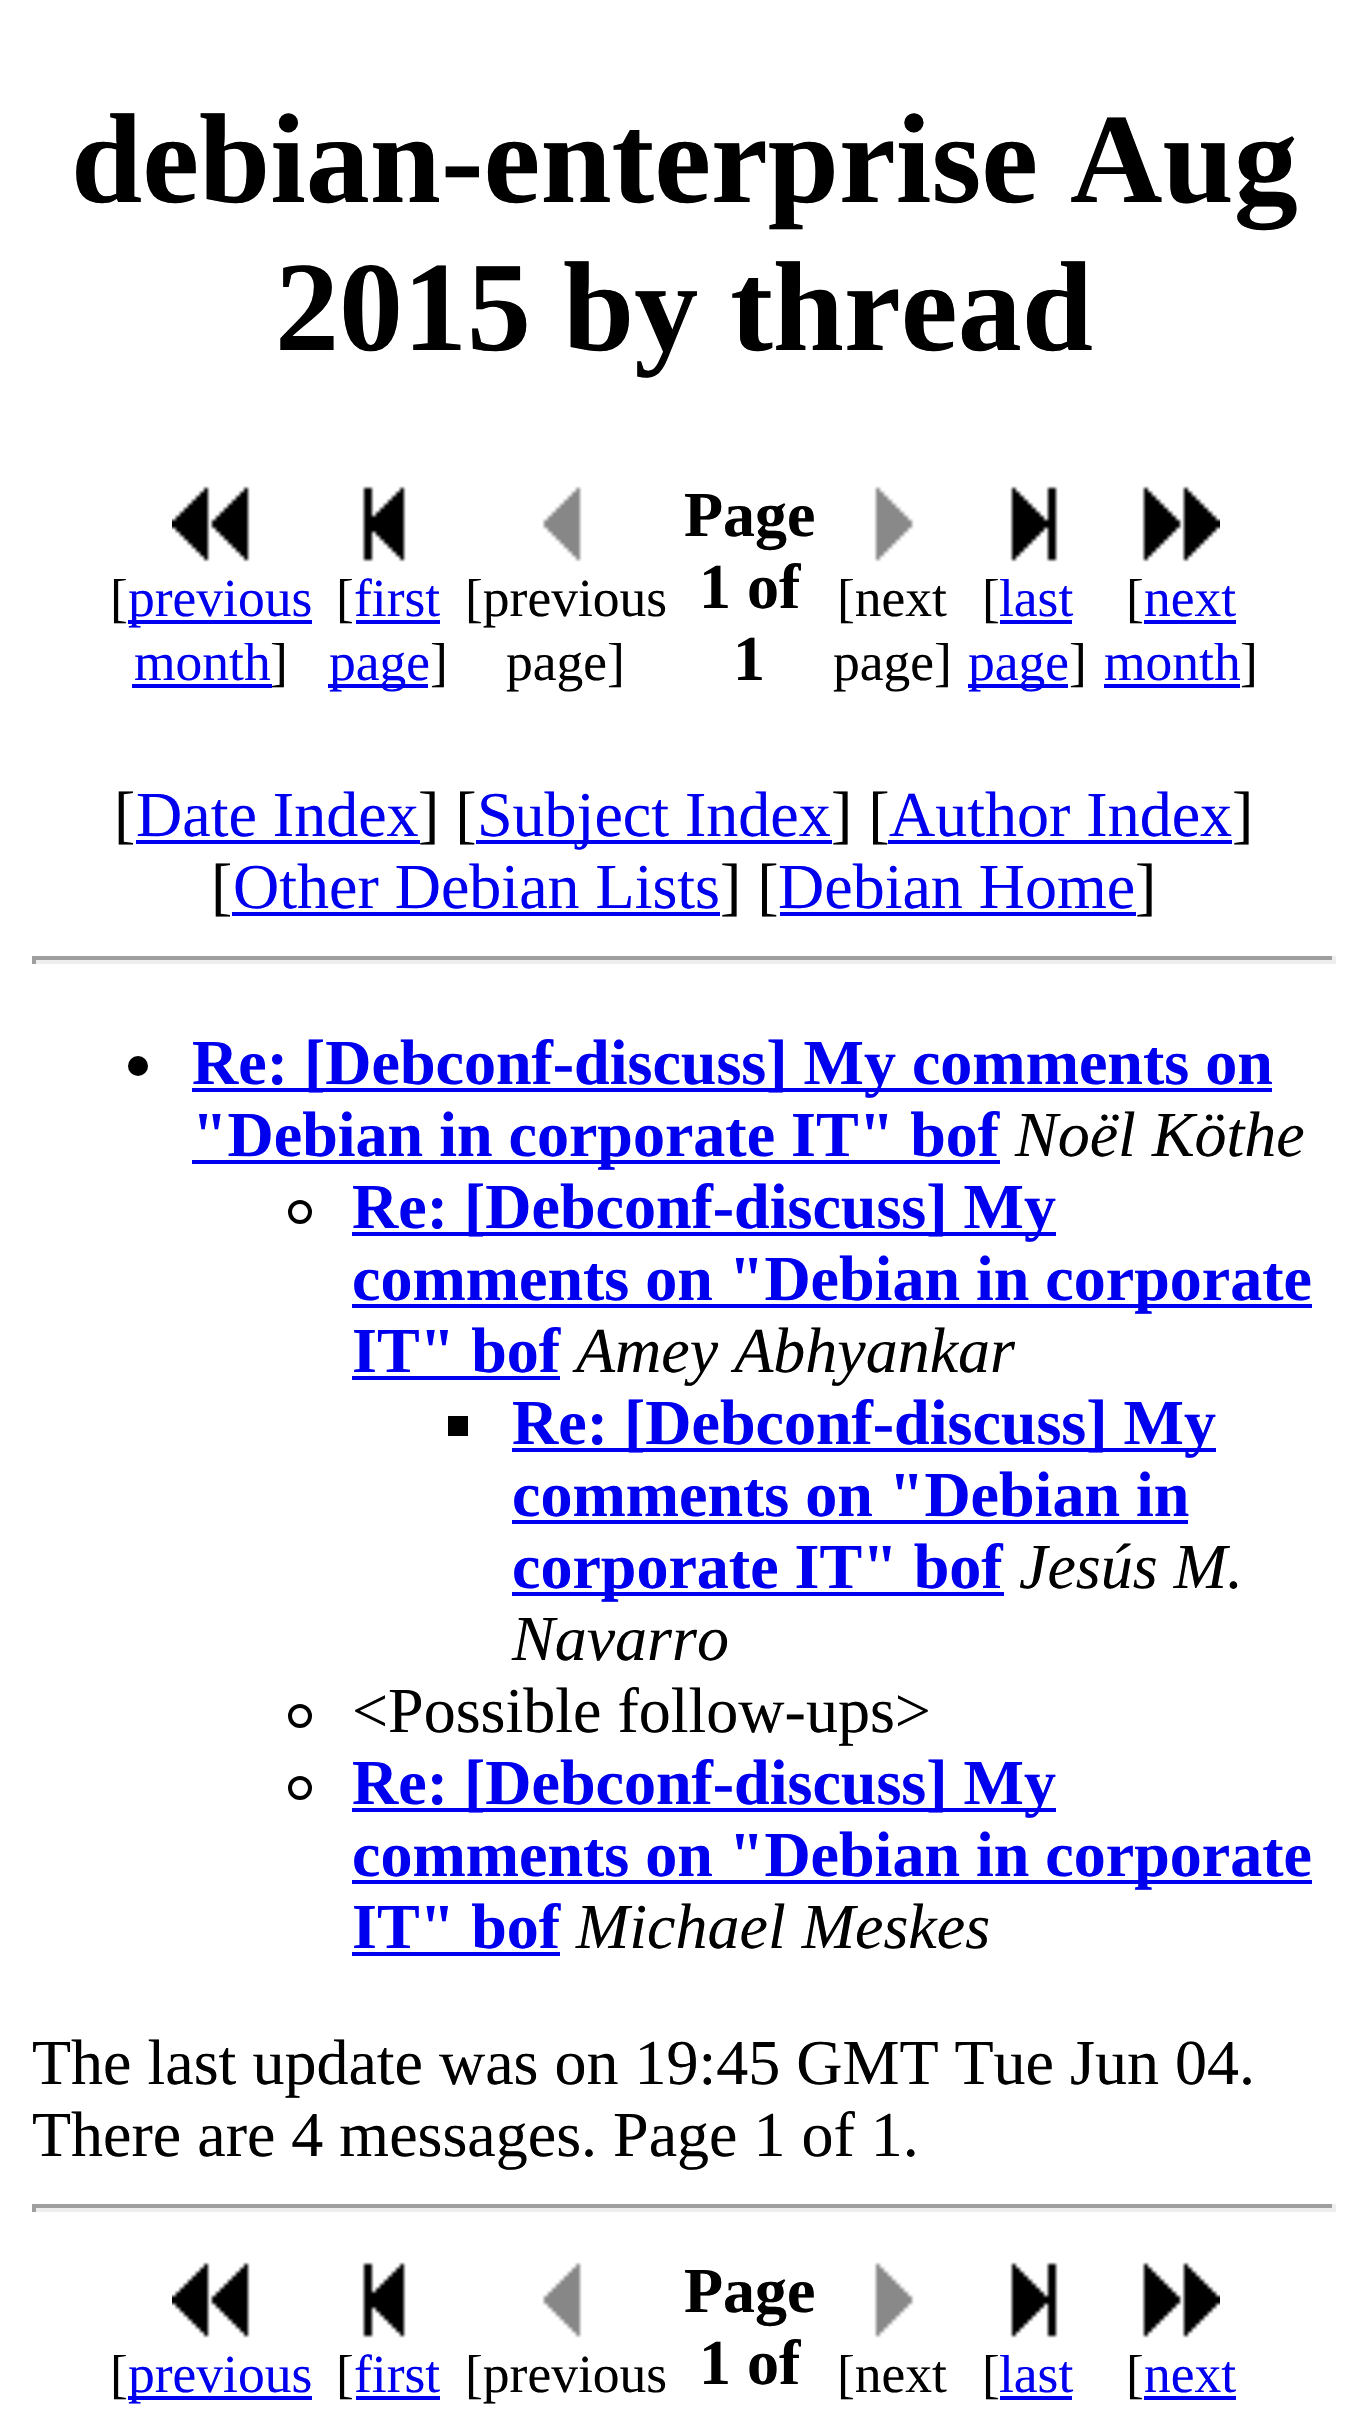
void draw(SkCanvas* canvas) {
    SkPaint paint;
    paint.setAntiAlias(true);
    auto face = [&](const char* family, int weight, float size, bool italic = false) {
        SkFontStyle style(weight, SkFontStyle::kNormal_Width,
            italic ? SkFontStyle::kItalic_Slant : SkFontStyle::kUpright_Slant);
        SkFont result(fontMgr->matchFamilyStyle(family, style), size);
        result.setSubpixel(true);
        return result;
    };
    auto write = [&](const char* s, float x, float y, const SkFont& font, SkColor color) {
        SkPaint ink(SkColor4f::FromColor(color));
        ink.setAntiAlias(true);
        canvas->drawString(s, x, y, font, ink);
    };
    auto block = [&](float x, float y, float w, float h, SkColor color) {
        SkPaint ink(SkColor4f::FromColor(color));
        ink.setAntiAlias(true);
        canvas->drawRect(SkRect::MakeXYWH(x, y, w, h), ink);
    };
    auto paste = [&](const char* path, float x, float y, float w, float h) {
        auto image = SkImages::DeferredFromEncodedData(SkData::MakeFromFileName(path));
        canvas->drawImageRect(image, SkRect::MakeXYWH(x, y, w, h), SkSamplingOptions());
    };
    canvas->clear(SK_ColorWHITE);
    auto kFont1 = face("Liberation Serif", 700, 128);
    write("debian-enterprise Aug", 71, 202, kFont1, SK_ColorBLACK);
    write("2015 by thread", 275, 350, kFont1, SK_ColorBLACK);
    paste("pic1.png", 172, 486, 78, 76);
    auto kFont2 = face("Liberation Serif", 400, 53.5f);
    write("[", 110, 616, kFont2, SK_ColorBLACK);
    block(128, 620, 184, 4, SkColorSetRGB(0, 0, 238));
    write("previous", 128, 616, kFont2, SkColorSetRGB(0, 0, 238));
    write("month", 134, 680, kFont2, SkColorSetRGB(0, 0, 238));
    block(132, 684, 140, 4, SkColorSetRGB(0, 0, 238));
    write("]", 270, 680, kFont2, SK_ColorBLACK);
    paste("pic2.png", 362, 486, 44, 76);
    write("[", 336, 616, kFont2, SK_ColorBLACK);
    block(356, 620, 84, 4, SkColorSetRGB(0, 0, 238));
    write("first", 354, 616, kFont2, SkColorSetRGB(0, 0, 238));
    block(328, 684, 100, 4, SkColorSetRGB(0, 0, 238));
    write("page", 329, 680, kFont2, SkColorSetRGB(0, 0, 238));
    write("]", 430, 680, kFont2, SK_ColorBLACK);
    paste("pic3.png", 542, 486, 40, 76);
    write("[previous", 465, 616, kFont2, SK_ColorBLACK);
    write("page]", 506, 680, kFont2, SK_ColorBLACK);
    auto kFont3 = face("Liberation Serif", 700, 64);
    write("Page", 684, 536, kFont3, SK_ColorBLACK);
    write("1 of", 699, 608, kFont3, SK_ColorBLACK);
    write("1", 733, 680, kFont3, SK_ColorBLACK);
    paste("pic4.png", 874, 486, 40, 76);
    write("[next", 837, 616, kFont2, SK_ColorBLACK);
    write("page]", 833, 680, kFont2, SK_ColorBLACK);
    paste("pic5.png", 1010, 486, 48, 76);
    write("[", 982, 616, kFont2, SK_ColorBLACK);
    block(1000, 620, 72, 4, SkColorSetRGB(0, 0, 238));
    write("last", 999, 616, kFont2, SkColorSetRGB(0, 0, 238));
    block(968, 684, 100, 4, SkColorSetRGB(0, 0, 238));
    write("page", 968, 680, kFont2, SkColorSetRGB(0, 0, 238));
    write("]", 1069, 680, kFont2, SK_ColorBLACK);
    paste("pic6.png", 1142, 486, 78, 76);
    write("[", 1126, 616, kFont2, SK_ColorBLACK);
    write("next", 1144, 616, kFont2, SkColorSetRGB(0, 0, 238));
    block(1144, 620, 92, 4, SkColorSetRGB(0, 0, 238));
    write("month", 1104, 680, kFont2, SkColorSetRGB(0, 0, 238));
    write("]", 1240, 680, kFont2, SK_ColorBLACK);
    block(1104, 684, 136, 4, SkColorSetRGB(0, 0, 238));
    auto kFont4 = face("Liberation Serif", 400, 64);
    write("[", 114, 836, kFont4, SK_ColorBLACK);
    write("Date Index", 136, 836, kFont4, SkColorSetRGB(0, 0, 238));
    block(136, 840, 284, 4, SkColorSetRGB(0, 0, 238));
    write("] [", 418, 836, kFont4, SK_ColorBLACK);
    block(476, 840, 356, 4, SkColorSetRGB(0, 0, 238));
    write("Subject Index", 477, 836, kFont4, SkColorSetRGB(0, 0, 238));
    write("] [", 831, 836, kFont4, SK_ColorBLACK);
    write("Author Index", 889, 836, kFont4, SkColorSetRGB(0, 0, 238));
    block(888, 840, 344, 4, SkColorSetRGB(0, 0, 238));
    write("]", 1232, 836, kFont4, SK_ColorBLACK);
    write("[", 211, 908, kFont4, SK_ColorBLACK);
    write("Other Debian Lists", 233, 908, kFont4, SkColorSetRGB(0, 0, 238));
    block(232, 912, 488, 4, SkColorSetRGB(0, 0, 238));
    write("] [", 720, 908, kFont4, SK_ColorBLACK);
    write("Debian Home", 778, 908, kFont4, SkColorSetRGB(0, 0, 238));
    block(780, 912, 356, 4, SkColorSetRGB(0, 0, 238));
    write("]", 1135, 908, kFont4, SK_ColorBLACK);
    block(32, 956, 1304, 4, SkColorSetRGB(159, 159, 159));
    block(1332, 956, 4, 8, SkColorSetRGB(238, 238, 238));
    block(32, 960, 1304, 4, SkColorSetRGB(238, 238, 238));
    block(32, 956, 4, 8, SkColorSetRGB(159, 159, 159));
    paint.setColor(SK_ColorBLACK);
    canvas->drawCircle(138, 1066, 10, paint);
    block(192, 1088, 1080, 4, SkColorSetRGB(0, 0, 238));
    write("Re: [Debconf-discuss] My comments on", 192, 1084, kFont3, SkColorSetRGB(0, 0, 238));
    block(192, 1160, 808, 4, SkColorSetRGB(0, 0, 238));
    write("\"Debian in corporate IT\" bof", 192, 1156, kFont3, SkColorSetRGB(0, 0, 238));
    auto kFont5 = face("Liberation Serif", 400, 64, true);
    write("Noël Köthe", 1015, 1156, kFont5, SK_ColorBLACK);
    paint.setStyle(SkPaint::kStroke_Style);
    paint.setStrokeWidth(4);
    canvas->drawCircle(300, 1212, 10, paint);
    block(352, 1232, 704, 4, SkColorSetRGB(0, 0, 238));
    write("Re: [Debconf-discuss] My", 352, 1228, kFont3, SkColorSetRGB(0, 0, 238));
    block(352, 1304, 960, 4, SkColorSetRGB(0, 0, 238));
    write("comments on \"Debian in corporate", 352, 1300, kFont3, SkColorSetRGB(0, 0, 238));
    write("IT\" bof", 352, 1372, kFont3, SkColorSetRGB(0, 0, 238));
    block(352, 1376, 208, 4, SkColorSetRGB(0, 0, 238));
    write("Amey Abhyankar", 576, 1372, kFont5, SK_ColorBLACK);
    block(448, 1416, 20, 20, SK_ColorBLACK);
    block(512, 1448, 704, 4, SkColorSetRGB(0, 0, 238));
    write("Re: [Debconf-discuss] My", 512, 1444, kFont3, SkColorSetRGB(0, 0, 238));
    write("comments on \"Debian in", 512, 1516, kFont3, SkColorSetRGB(0, 0, 238));
    block(512, 1520, 676, 4, SkColorSetRGB(0, 0, 238));
    block(512, 1592, 492, 4, SkColorSetRGB(0, 0, 238));
    write("corporate IT\" bof", 512, 1588, kFont3, SkColorSetRGB(0, 0, 238));
    write("Jesús M.", 1019, 1588, kFont5, SK_ColorBLACK);
    write("Navarro", 512, 1660, kFont5, SK_ColorBLACK);
    canvas->drawCircle(300, 1716, 10, paint);
    write("<Possible follow-ups>", 352, 1732, kFont4, SK_ColorBLACK);
    canvas->drawCircle(300, 1788, 10, paint);
    block(352, 1808, 704, 4, SkColorSetRGB(0, 0, 238));
    write("Re: [Debconf-discuss] My", 352, 1804, kFont3, SkColorSetRGB(0, 0, 238));
    block(352, 1880, 960, 4, SkColorSetRGB(0, 0, 238));
    write("comments on \"Debian in corporate", 352, 1876, kFont3, SkColorSetRGB(0, 0, 238));
    write("IT\" bof", 352, 1948, kFont3, SkColorSetRGB(0, 0, 238));
    block(352, 1952, 208, 4, SkColorSetRGB(0, 0, 238));
    write("Michael Meskes", 576, 1948, kFont5, SK_ColorBLACK);
    write("The last update was on 19:45 GMT Tue Jun 04.", 32, 2084, kFont4, SK_ColorBLACK);
    write("There are 4 messages. Page 1 of 1.", 32, 2156, kFont4, SK_ColorBLACK);
    block(32, 2204, 1304, 4, SkColorSetRGB(159, 159, 159));
    block(1332, 2204, 4, 8, SkColorSetRGB(238, 238, 238));
    block(32, 2208, 1304, 4, SkColorSetRGB(238, 238, 238));
    block(32, 2204, 4, 8, SkColorSetRGB(159, 159, 159));
    paste("pic1.png", 172, 2262, 78, 76);
    write("[", 110, 2392, kFont2, SK_ColorBLACK);
    block(128, 2396, 184, 4, SkColorSetRGB(0, 0, 238));
    write("previous", 128, 2392, kFont2, SkColorSetRGB(0, 0, 238));
    paste("pic2.png", 362, 2262, 44, 76);
    write("[", 336, 2392, kFont2, SK_ColorBLACK);
    block(356, 2396, 84, 4, SkColorSetRGB(0, 0, 238));
    write("first", 354, 2392, kFont2, SkColorSetRGB(0, 0, 238));
    paste("pic3.png", 542, 2262, 40, 76);
    write("[previous", 465, 2392, kFont2, SK_ColorBLACK);
    write("Page", 684, 2312, kFont3, SK_ColorBLACK);
    write("1 of", 699, 2384, kFont3, SK_ColorBLACK);
    paste("pic4.png", 874, 2262, 40, 76);
    write("[next", 837, 2392, kFont2, SK_ColorBLACK);
    paste("pic5.png", 1010, 2262, 48, 76);
    write("[", 982, 2392, kFont2, SK_ColorBLACK);
    block(1000, 2396, 72, 4, SkColorSetRGB(0, 0, 238));
    write("last", 999, 2392, kFont2, SkColorSetRGB(0, 0, 238));
    paste("pic6.png", 1142, 2262, 78, 76);
    write("[", 1126, 2392, kFont2, SK_ColorBLACK);
    write("next", 1144, 2392, kFont2, SkColorSetRGB(0, 0, 238));
    block(1144, 2396, 92, 4, SkColorSetRGB(0, 0, 238));
}
